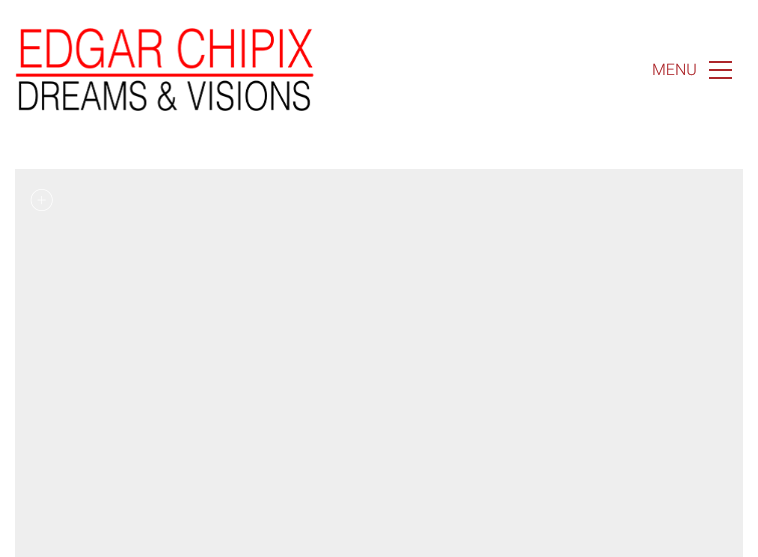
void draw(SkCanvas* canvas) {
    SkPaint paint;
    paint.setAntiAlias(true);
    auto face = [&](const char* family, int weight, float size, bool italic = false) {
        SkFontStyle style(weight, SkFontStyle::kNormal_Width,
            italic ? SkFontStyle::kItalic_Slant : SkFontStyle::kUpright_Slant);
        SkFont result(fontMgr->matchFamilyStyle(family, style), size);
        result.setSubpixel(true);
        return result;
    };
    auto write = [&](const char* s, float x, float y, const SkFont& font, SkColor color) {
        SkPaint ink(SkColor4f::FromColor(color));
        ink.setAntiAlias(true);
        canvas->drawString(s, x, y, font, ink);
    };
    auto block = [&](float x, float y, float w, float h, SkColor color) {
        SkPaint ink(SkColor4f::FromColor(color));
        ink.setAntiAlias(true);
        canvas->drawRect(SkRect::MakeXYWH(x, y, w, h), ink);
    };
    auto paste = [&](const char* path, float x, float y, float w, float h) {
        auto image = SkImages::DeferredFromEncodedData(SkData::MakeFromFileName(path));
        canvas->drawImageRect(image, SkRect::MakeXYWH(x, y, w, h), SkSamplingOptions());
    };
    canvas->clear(SK_ColorWHITE);
    paste("pic1.png", 15, 28, 299, 83);
    auto kFont1 = face("Roboto", 300, 16);
    write("MENU", 652, 75, kFont1, SkColorSetRGB(173, 38, 42));
    block(709, 69, 23, 2, SkColorSetRGB(173, 38, 42));
    block(709, 61, 23, 2, SkColorSetRGB(173, 38, 42));
    block(709, 77, 23, 2, SkColorSetRGB(173, 38, 42));
    block(15, 169, 728, 388, SkColorSetRGB(238, 238, 238));
    paste("pic2.png", 30, 189, 23, 22);
}
